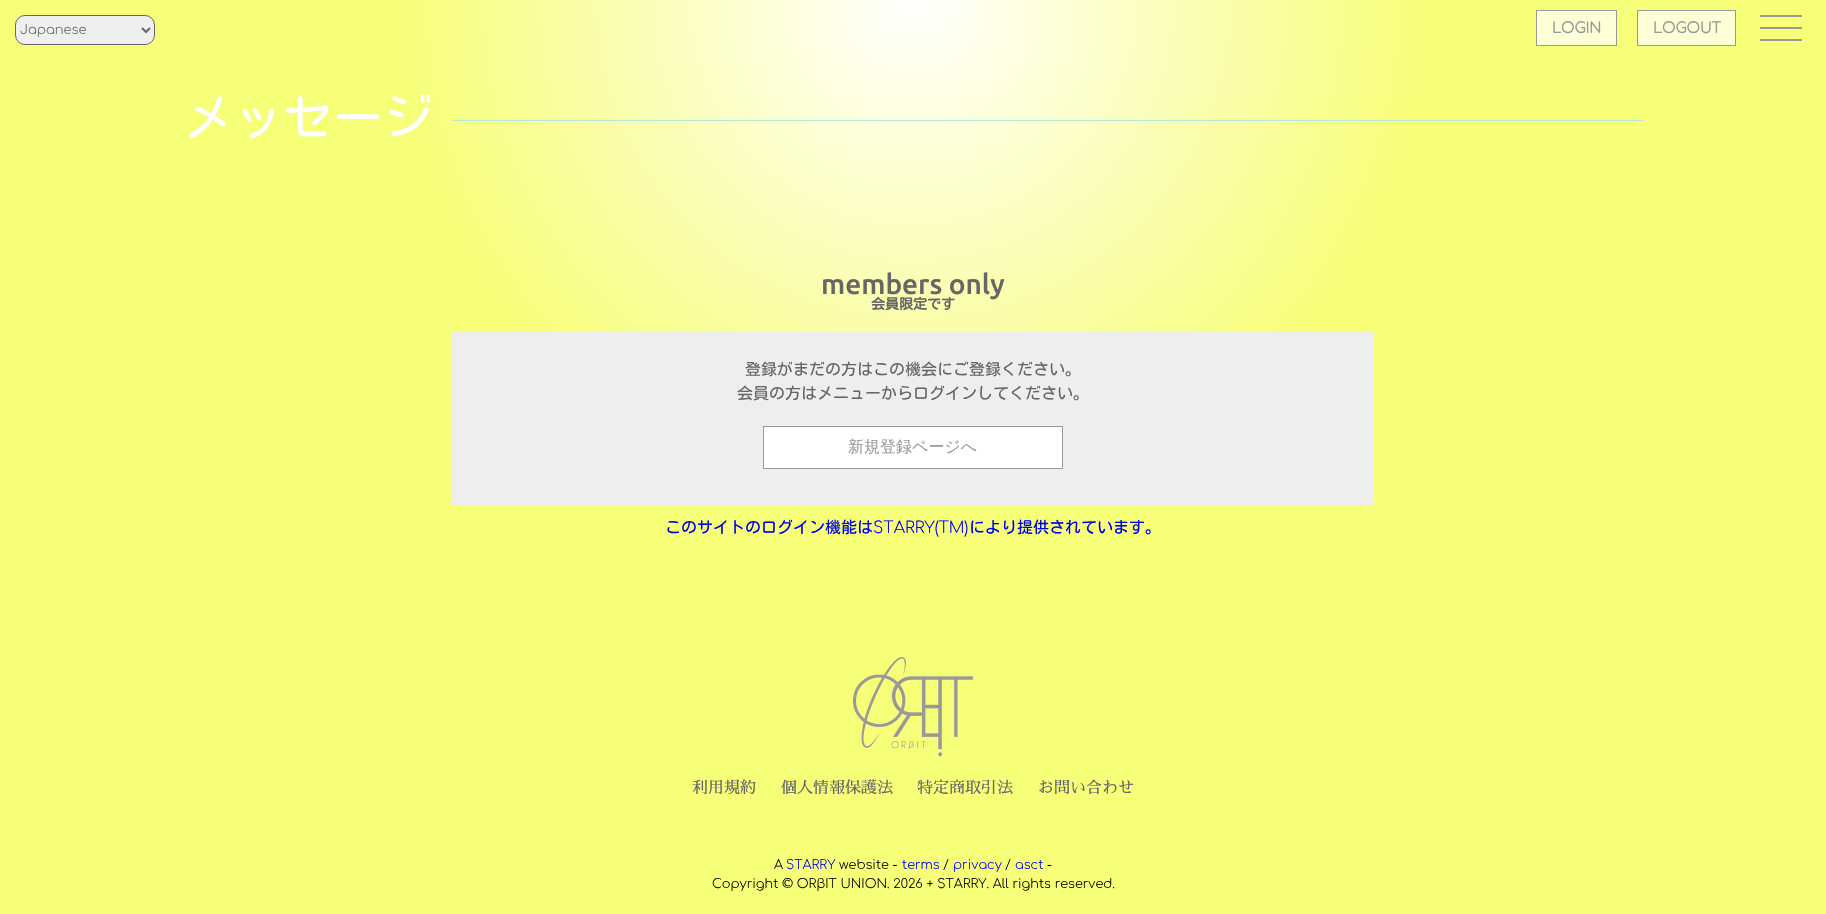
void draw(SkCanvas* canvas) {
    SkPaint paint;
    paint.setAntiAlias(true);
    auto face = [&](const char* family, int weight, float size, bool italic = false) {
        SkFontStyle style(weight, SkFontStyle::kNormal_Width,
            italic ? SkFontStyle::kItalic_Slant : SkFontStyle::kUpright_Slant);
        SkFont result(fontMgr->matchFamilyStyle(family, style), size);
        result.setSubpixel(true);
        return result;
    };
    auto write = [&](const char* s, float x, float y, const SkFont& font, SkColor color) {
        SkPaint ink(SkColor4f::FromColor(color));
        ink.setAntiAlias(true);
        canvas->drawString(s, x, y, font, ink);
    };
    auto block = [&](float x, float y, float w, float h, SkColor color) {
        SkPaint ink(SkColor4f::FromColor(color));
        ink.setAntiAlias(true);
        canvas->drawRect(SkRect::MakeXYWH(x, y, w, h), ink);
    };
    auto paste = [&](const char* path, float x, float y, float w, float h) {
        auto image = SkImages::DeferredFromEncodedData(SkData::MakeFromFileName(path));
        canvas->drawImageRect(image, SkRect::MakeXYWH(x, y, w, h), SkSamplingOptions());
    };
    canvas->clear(SK_ColorWHITE);
    {
        const SkColor colors[] = {SK_ColorWHITE, SkColorSetRGB(247, 254, 120)};
        const float stops[] = {0, 0.4f};
        paint.setShader(SkGradientShader::MakeRadial({913, 0}, 1292, colors, stops, 2, SkTileMode::kClamp));
        paint.setAlpha(255);
    }
    canvas->drawRect(SkRect::MakeXYWH(0, 0, 1826, 914), paint);
    paint.setShader(nullptr);
    paint.setColor(SkColorSetRGB(239, 239, 239));
    canvas->drawRoundRect(SkRect::MakeXYWH(15.5f, 15.5f, 139, 29), 9.5f, 9.5f, paint);
    paint.setStyle(SkPaint::kStroke_Style);
    paint.setStrokeWidth(1);
    paint.setColor(SkColorSetRGB(102, 102, 102));
    canvas->drawRoundRect(SkRect::MakeXYWH(15.5f, 15.5f, 139, 29), 9.5f, 9.5f, paint);
    paint.setStrokeWidth(2);
    canvas->drawPath(SkPathBuilder().moveTo(142, 28).lineTo(146, 32).lineTo(150, 28).detach(), paint);
    auto kFont1 = face("Comfortaa", 300, 13);
    write("Japanese", 20, 34, kFont1, SkColorSetRGB(102, 102, 102));
    paint.setStyle(SkPaint::kFill_Style);
    paint.setColor(SkColorSetRGB(253, 255, 215));
    canvas->drawRect(SkRect::MakeXYWH(1536.5f, 10.5f, 80, 35), paint);
    paint.setStyle(SkPaint::kStroke_Style);
    paint.setStrokeWidth(1);
    paint.setColor(SkColorSetRGB(153, 153, 153));
    canvas->drawRect(SkRect::MakeXYWH(1536.5f, 10.5f, 80, 35), paint);
    auto kFont2 = face("Comfortaa", 700, 14.5f);
    write("LOGIN", 1552, 33, kFont2, SkColorSetRGB(153, 153, 153));
    paint.setStyle(SkPaint::kFill_Style);
    paint.setColor(SkColorSetRGB(253, 255, 215));
    canvas->drawRect(SkRect::MakeXYWH(1637.5f, 10.5f, 98, 35), paint);
    paint.setStyle(SkPaint::kStroke_Style);
    paint.setColor(SkColorSetRGB(153, 153, 153));
    canvas->drawRect(SkRect::MakeXYWH(1637.5f, 10.5f, 98, 35), paint);
    write("LOGOUT", 1653, 33, kFont2, SkColorSetRGB(153, 153, 153));
    block(1760, 15, 42, 2, SkColorSetRGB(153, 153, 153));
    block(1760, 27, 42, 2, SkColorSetRGB(153, 153, 153));
    block(1760, 39, 42, 2, SkColorSetRGB(153, 153, 153));
    auto kFont3 = face("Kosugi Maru", 400, 50);
    write("メッセージ", 183, 136, kFont3, SK_ColorWHITE);
    block(453, 120, 1190, 1, SkColorSetRGB(180, 234, 213));
    auto kFont4 = face("Ubuntu", 500, 28);
    write("members only", 821, 294, kFont4, SkColorSetRGB(102, 102, 102));
    auto kFont5 = face("Kosugi Maru", 700, 14);
    write("会員限定です", 871, 309, kFont5, SkColorSetRGB(102, 102, 102));
    block(451, 332, 923, 173, SkColorSetRGB(238, 238, 238));
    auto kFont6 = face("Kosugi Maru", 400, 16);
    write("登録がまだの方はこの機会にご登録ください。", 745, 375, kFont6, SkColorSetRGB(102, 102, 102));
    write("会員の方はメニューからログインしてください。", 737, 399, kFont6, SkColorSetRGB(102, 102, 102));
    paint.setStyle(SkPaint::kFill_Style);
    paint.setColor(SK_ColorWHITE);
    canvas->drawRect(SkRect::MakeXYWH(763.5f, 426.5f, 299, 42), paint);
    paint.setStyle(SkPaint::kStroke_Style);
    paint.setColor(SkColorSetRGB(153, 153, 153));
    canvas->drawRect(SkRect::MakeXYWH(763.5f, 426.5f, 299, 42), paint);
    auto kFont7 = face("WenQuanYi Zen Hei", 500, 16);
    write("新規登録ページへ", 848, 452, kFont7, SkColorSetRGB(153, 153, 153));
    write("このサイトのログイン機能は", 665, 533, kFont6, SkColorSetRGB(0, 0, 238));
    auto kFont8 = face("Comfortaa", 300, 16);
    write("STARRY(TM)", 873, 533, kFont8, SkColorSetRGB(0, 0, 238));
    write("により提供されています。", 969, 533, kFont6, SkColorSetRGB(0, 0, 238));
    paste("pic1.png", 853, 657, 120, 100);
    auto kFont9 = face("Sawarabi Mincho", 400, 16);
    write("利用規約", 692, 793, kFont9, SkColorSetRGB(102, 102, 102));
    write("個人情報保護法", 781, 793, kFont9, SkColorSetRGB(102, 102, 102));
    write("特定商取引法", 917, 793, kFont9, SkColorSetRGB(102, 102, 102));
    write("お問い合わせ", 1038, 793, kFont9, SkColorSetRGB(102, 102, 102));
    auto kFont10 = face("Comfortaa", 300, 12.8f);
    write("A", 774, 869, kFont10, SK_ColorBLACK);
    write("STARRY", 786, 869, kFont10, SkColorSetRGB(0, 0, 238));
    write("website -", 839, 869, kFont10, SK_ColorBLACK);
    write("terms", 902, 869, kFont10, SkColorSetRGB(0, 0, 238));
    write("/", 943, 869, kFont10, SK_ColorBLACK);
    write("privacy", 953, 869, kFont10, SkColorSetRGB(0, 0, 238));
    write("/", 1005, 869, kFont10, SK_ColorBLACK);
    write("asct", 1015, 869, kFont10, SkColorSetRGB(0, 0, 238));
    write("-", 1047, 869, kFont10, SK_ColorBLACK);
    write("Copyright © ORβIT UNION. 2026 + STARRY. All rights reserved.", 712, 888, kFont10, SK_ColorBLACK);
}
